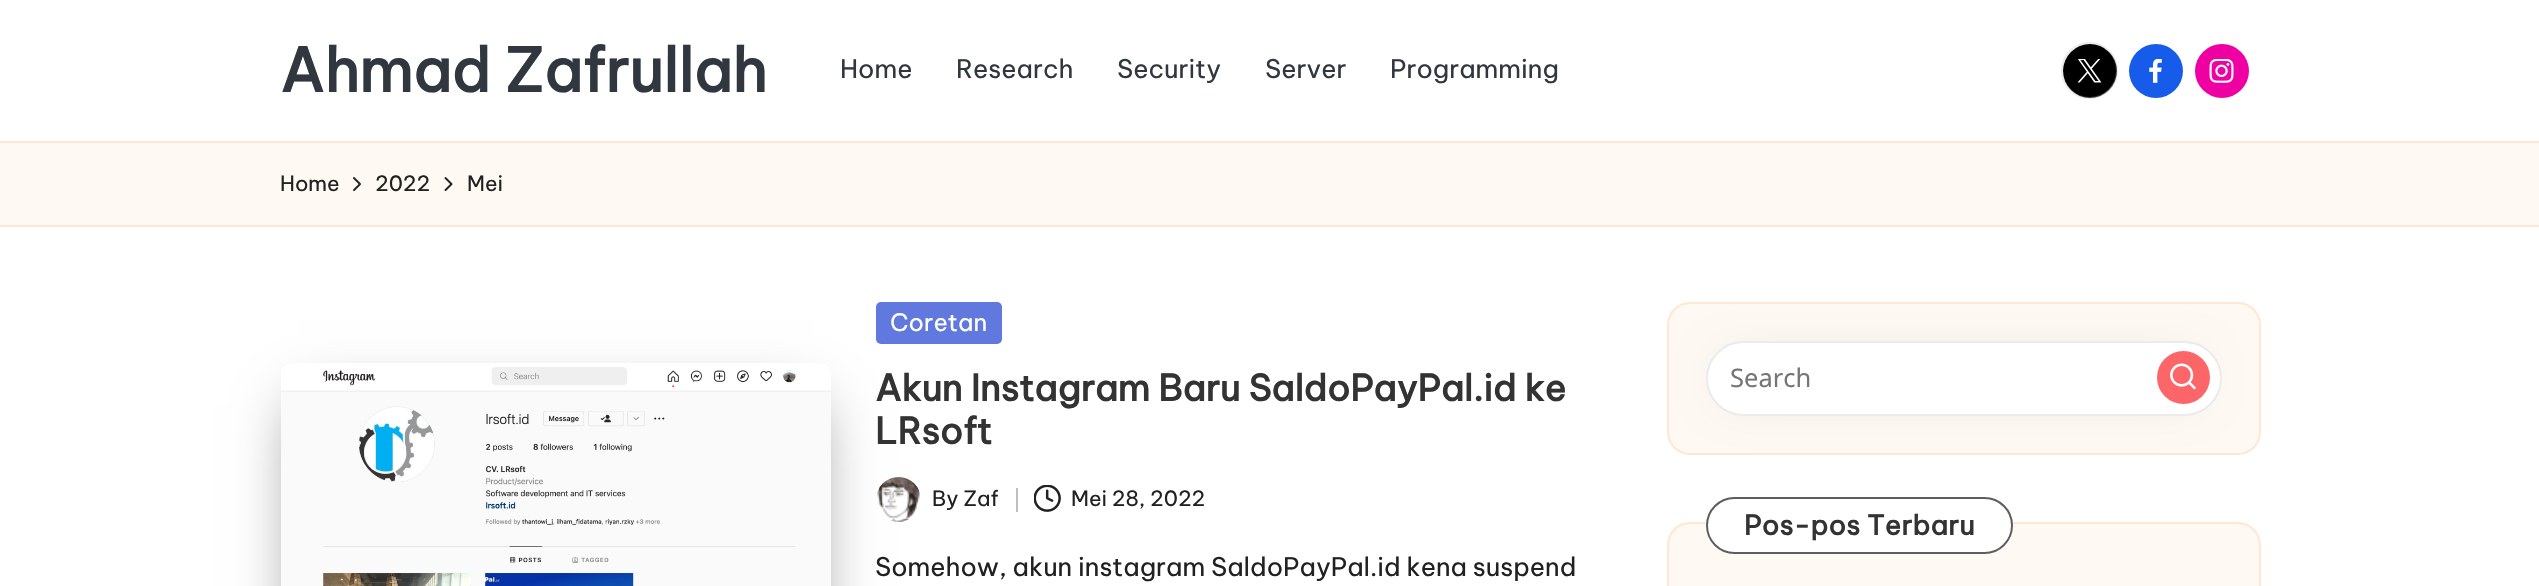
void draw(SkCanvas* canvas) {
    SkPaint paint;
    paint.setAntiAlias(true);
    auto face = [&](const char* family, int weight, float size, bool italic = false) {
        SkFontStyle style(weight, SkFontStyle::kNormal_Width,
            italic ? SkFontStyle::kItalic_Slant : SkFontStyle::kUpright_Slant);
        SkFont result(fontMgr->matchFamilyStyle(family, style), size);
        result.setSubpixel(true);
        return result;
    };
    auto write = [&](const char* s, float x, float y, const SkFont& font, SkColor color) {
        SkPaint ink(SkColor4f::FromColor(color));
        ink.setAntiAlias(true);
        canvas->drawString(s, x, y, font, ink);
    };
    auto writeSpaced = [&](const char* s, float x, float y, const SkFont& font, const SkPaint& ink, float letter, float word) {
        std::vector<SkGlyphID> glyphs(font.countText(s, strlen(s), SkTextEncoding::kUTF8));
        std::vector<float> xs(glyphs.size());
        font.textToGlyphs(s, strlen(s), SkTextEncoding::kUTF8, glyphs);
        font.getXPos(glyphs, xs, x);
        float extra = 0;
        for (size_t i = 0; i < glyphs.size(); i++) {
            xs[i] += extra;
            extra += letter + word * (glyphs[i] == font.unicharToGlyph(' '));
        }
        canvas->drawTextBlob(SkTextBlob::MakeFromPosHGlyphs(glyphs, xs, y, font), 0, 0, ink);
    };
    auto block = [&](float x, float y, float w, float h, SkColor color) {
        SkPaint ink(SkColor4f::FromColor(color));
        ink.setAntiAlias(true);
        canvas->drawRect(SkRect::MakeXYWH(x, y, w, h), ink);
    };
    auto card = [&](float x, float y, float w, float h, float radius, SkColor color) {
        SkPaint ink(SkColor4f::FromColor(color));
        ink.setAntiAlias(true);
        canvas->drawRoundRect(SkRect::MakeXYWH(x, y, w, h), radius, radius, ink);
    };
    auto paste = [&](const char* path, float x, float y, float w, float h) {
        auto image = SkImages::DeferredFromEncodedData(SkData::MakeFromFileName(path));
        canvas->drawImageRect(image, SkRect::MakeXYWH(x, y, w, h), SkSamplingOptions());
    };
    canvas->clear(SK_ColorWHITE);
    auto kFont1 = face("Be Vietnam Pro", 700, 60);
    write("Ahmad Zafrullah", 280, 92, kFont1, SkColorSetRGB(48, 55, 62));
    auto kFont2 = face("Be Vietnam Pro", 400, 25.5f);
    write("Home", 840, 78, kFont2, SkColorSetRGB(48, 55, 62));
    write("Research", 956, 78, kFont2, SkColorSetRGB(48, 55, 62));
    write("Security", 1117, 78, kFont2, SkColorSetRGB(48, 55, 62));
    write("Server", 1265, 78, kFont2, SkColorSetRGB(48, 55, 62));
    write("Programming", 1390, 78, kFont2, SkColorSetRGB(48, 55, 62));
    paint.setColor(SK_ColorBLACK);
    canvas->drawCircle(2090, 71, 27, paint);
    paint.setStyle(SkPaint::kStroke_Style);
    paint.setStrokeWidth(2);
    paint.setColor(SkColorSetARGB(77, 190, 190, 190));
    canvas->drawCircle(2089.5f, 70.5f, 27.5f, paint);
    paste("pic1.png", 2077, 59, 25, 24);
    paint.setStyle(SkPaint::kFill_Style);
    paint.setColor(SkColorSetRGB(23, 91, 235));
    canvas->drawCircle(2156, 71, 27, paint);
    paste("pic2.png", 2149, 59, 13, 24);
    paint.setColor(SkColorSetRGB(239, 0, 162));
    canvas->drawCircle(2222, 71, 27, paint);
    paste("pic3.png", 2209, 59, 25, 24);
    block(0, 143, 2539, 82, SkColorSetRGB(255, 249, 243));
    block(0, 141, 2539, 2, SkColorSetRGB(255, 231, 210));
    block(0, 225, 2539, 2, SkColorSetRGB(255, 231, 210));
    auto kFont3 = face("Be Vietnam Pro", 400, 21);
    write("Home", 280, 191, kFont3, SkColorSetRGB(33, 33, 33));
    paste("pic4.png", 353, 177, 8, 14);
    write("2022", 375, 191, kFont3, SkColorSetRGB(33, 33, 33));
    paste("pic5.png", 444, 177, 9, 15);
    write("Mei", 467, 191, kFont3, SkColorSetRGB(33, 33, 33));
    card(876, 302, 126, 42, 5, SkColorSetRGB(97, 120, 223));
    paste("pic7.png", 877, 477, 43, 45);
    paint.setColor(SkColorSetARGB(128, 0, 0, 0));
    paint.setMaskFilter(SkMaskFilter::MakeBlur(kNormal_SkBlurStyle, 28.5f));
    canvas->drawRect(SkRect::MakeXYWH(299, 405, 514, 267), paint);
    paint.setMaskFilter(nullptr);
    paste("pic6.png", 281, 363, 550, 223);
    auto kFont4 = face("Be Vietnam Pro", 400, 24);
    write("Coretan", 890, 331, kFont4, SK_ColorWHITE);
    auto kFont5 = face("Be Vietnam Pro", 700, 36);
    write("Akun Instagram Baru SaldoPayPal.id ke", 875, 401, kFont5, SkColorSetRGB(51, 51, 51));
    write("LRsoft", 875, 444, kFont5, SkColorSetRGB(51, 51, 51));
    write("By Zaf", 932, 506, kFont3, SkColorSetRGB(33, 33, 33));
    block(1016, 488, 2, 24, SkColorSetRGB(191, 191, 191));
    paste("pic8.png", 1034, 485, 27, 27);
    write("Mei 28, 2022", 1071, 506, kFont3, SkColorSetRGB(33, 33, 33));
    write("Somehow, akun instagram SaldoPayPal.id kena suspend", 875, 576, kFont2, SkColorSetRGB(33, 33, 33));
    paint.setColor(SkColorSetRGB(255, 249, 243));
    canvas->drawRoundRect(SkRect::MakeXYWH(1668, 303, 592, 151), 22, 22, paint);
    paint.setStyle(SkPaint::kStroke_Style);
    paint.setColor(SkColorSetRGB(255, 231, 210));
    canvas->drawRoundRect(SkRect::MakeXYWH(1668, 303, 592, 151), 22, 22, paint);
    paint.setStyle(SkPaint::kFill_Style);
    paint.setColor(SkColorSetARGB(38, 0, 0, 0));
    paint.setMaskFilter(SkMaskFilter::MakeBlur(kNormal_SkBlurStyle, 24));
    canvas->drawRoundRect(SkRect::MakeXYWH(1725, 365, 468, 27), 13.5f, 13.5f, paint);
    paint.setMaskFilter(nullptr);
    card(1706, 341, 516, 75, 37.5f, SK_ColorWHITE);
    paint.setStyle(SkPaint::kStroke_Style);
    paint.setColor(SkColorSetARGB(77, 190, 190, 190));
    canvas->drawRoundRect(SkRect::MakeXYWH(1707, 342, 514, 73), 36.5f, 36.5f, paint);
    auto kFont6 = face("Noto Sans", 400, 25.5f);
    write("Search", 1730, 387, kFont6, SkColorSetRGB(117, 117, 117));
    paint.setStyle(SkPaint::kFill_Style);
    paint.setColor(SkColorSetRGB(252, 102, 104));
    canvas->drawCircle(2183.5f, 377.5f, 26.5f, paint);
    paste("pic9.png", 2170, 363, 26, 27);
    paint.setColor(SkColorSetRGB(255, 249, 243));
    canvas->drawRoundRect(SkRect::MakeXYWH(1668, 523, 592, 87), 22, 22, paint);
    paint.setStyle(SkPaint::kStroke_Style);
    paint.setColor(SkColorSetRGB(255, 231, 210));
    canvas->drawRoundRect(SkRect::MakeXYWH(1668, 523, 592, 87), 22, 22, paint);
    card(1706, 497, 307, 57, 28.5f, SK_ColorWHITE);
    paint.setColor(SkColorSetARGB(191, 39, 39, 39));
    canvas->drawRoundRect(SkRect::MakeXYWH(1707, 498, 305, 55), 27.5f, 27.5f, paint);
    auto kFont7 = face("Be Vietnam Pro", 700, 27);
    paint.setStyle(SkPaint::kFill_Style);
    paint.setColor(SkColorSetRGB(51, 51, 51));
    writeSpaced("Pos-pos Terbaru", 1744, 535, kFont7, paint, 0.4f, 0);
}
